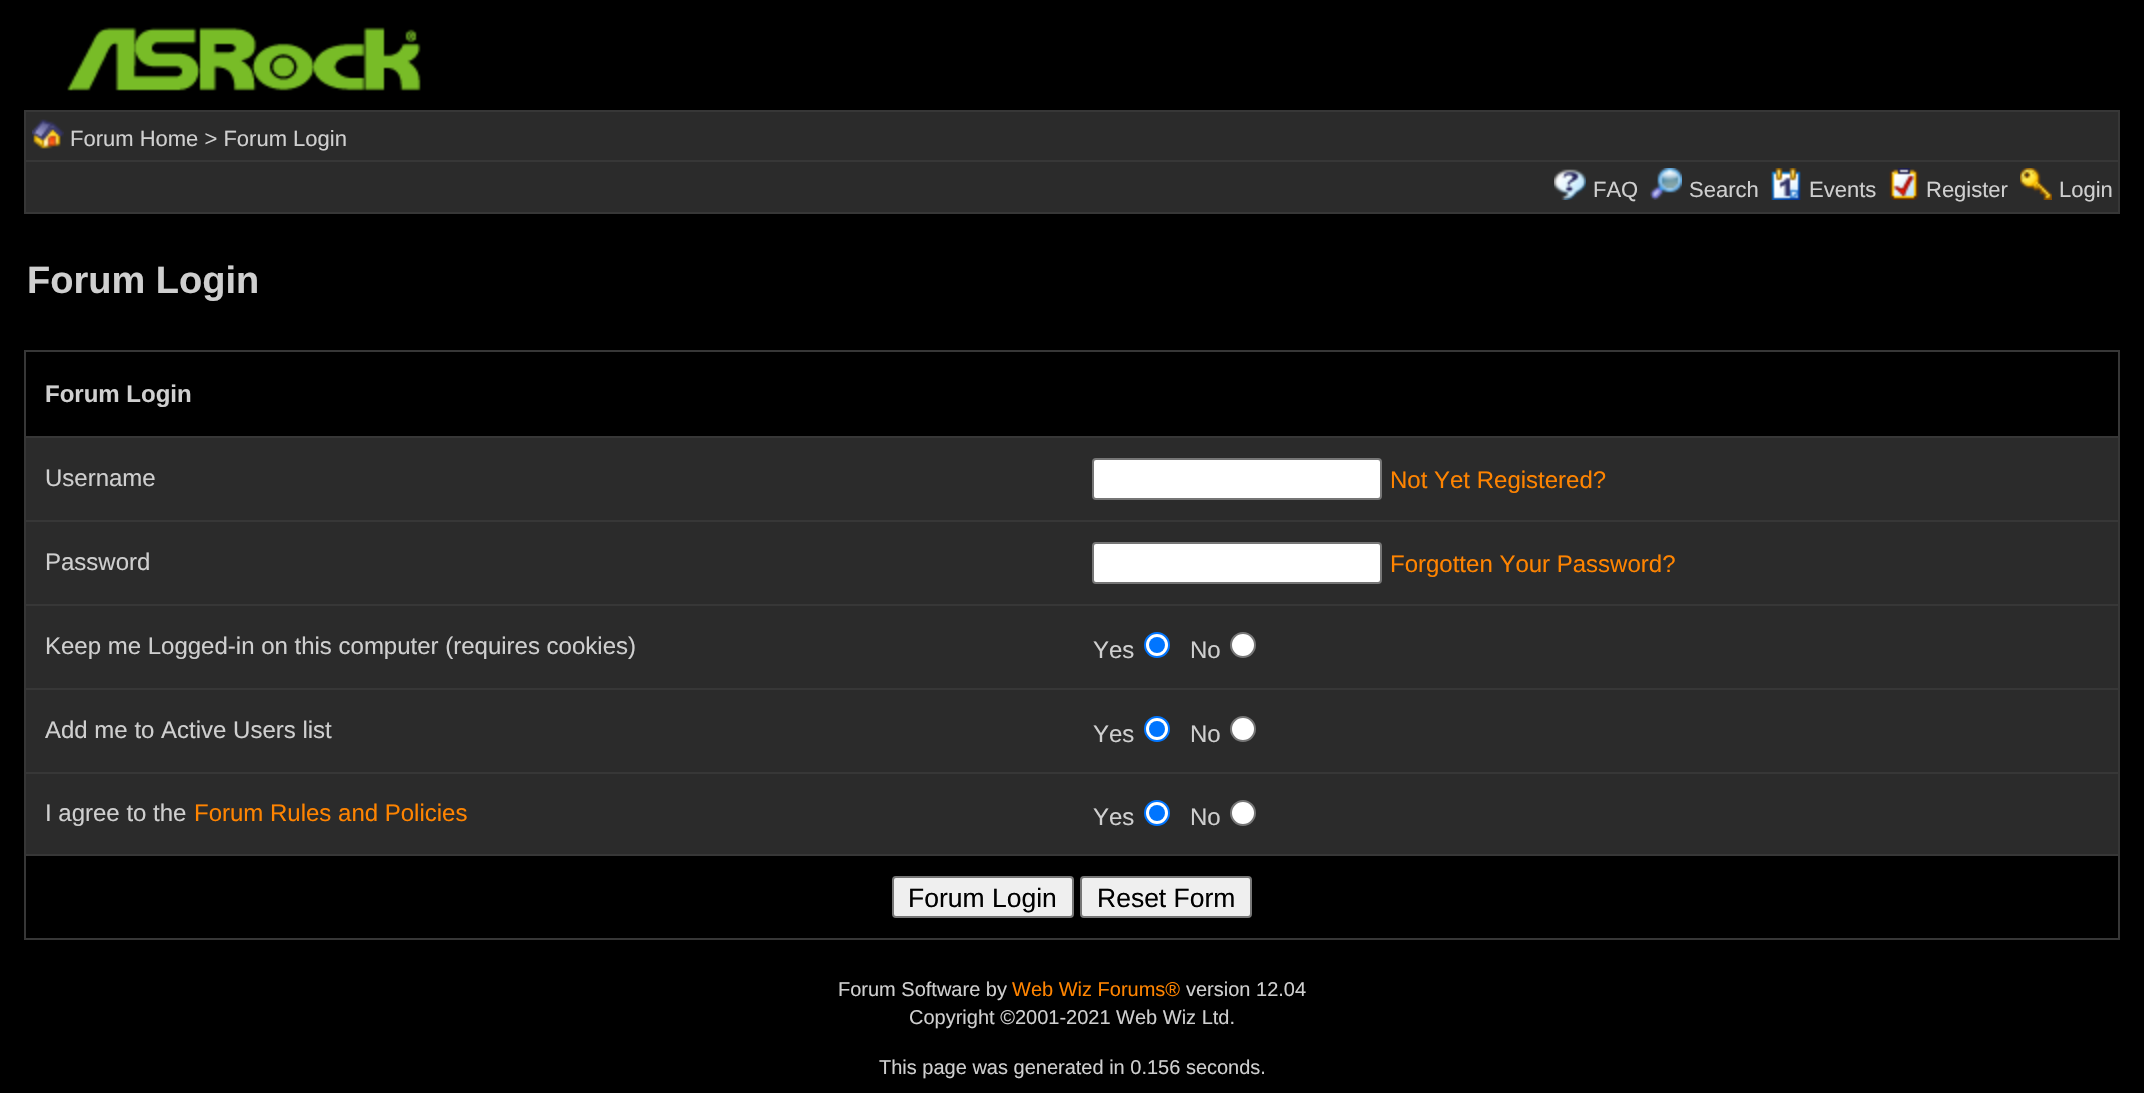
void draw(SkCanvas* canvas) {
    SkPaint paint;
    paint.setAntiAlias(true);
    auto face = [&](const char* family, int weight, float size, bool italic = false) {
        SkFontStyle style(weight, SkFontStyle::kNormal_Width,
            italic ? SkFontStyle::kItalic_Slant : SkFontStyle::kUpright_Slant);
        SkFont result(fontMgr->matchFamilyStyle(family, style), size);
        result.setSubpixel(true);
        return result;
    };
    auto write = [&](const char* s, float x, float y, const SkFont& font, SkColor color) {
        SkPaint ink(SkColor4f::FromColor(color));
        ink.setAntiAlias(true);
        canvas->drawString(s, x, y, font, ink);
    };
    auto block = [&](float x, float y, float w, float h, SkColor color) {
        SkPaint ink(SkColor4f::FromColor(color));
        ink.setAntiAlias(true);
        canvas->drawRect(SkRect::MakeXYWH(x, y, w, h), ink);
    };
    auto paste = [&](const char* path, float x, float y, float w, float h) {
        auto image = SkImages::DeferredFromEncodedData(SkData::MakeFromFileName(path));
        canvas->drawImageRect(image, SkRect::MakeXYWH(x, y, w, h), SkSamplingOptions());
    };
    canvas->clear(SK_ColorBLACK);
    paste("pic1.png", 67, 27, 354, 64);
    block(24, 110, 2096, 104, SkColorSetRGB(55, 55, 55));
    block(26, 112, 2092, 48, SkColorSetRGB(43, 43, 43));
    paste("pic2.png", 32, 119, 32, 30);
    auto kFont1 = face("Liberation Sans", 400, 22);
    write("Forum Home > Forum Login", 70, 146, kFont1, SkColorSetRGB(207, 207, 207));
    block(26, 162, 2092, 50, SkColorSetRGB(43, 43, 43));
    paste("pic3.png", 1554, 169, 32, 31);
    write("FAQ", 1593, 197, kFont1, SkColorSetRGB(207, 207, 207));
    paste("pic4.png", 1650, 168, 32, 32);
    write("Search", 1689, 197, kFont1, SkColorSetRGB(207, 207, 207));
    paste("pic5.png", 1771, 168, 30, 32);
    write("Events", 1809, 197, kFont1, SkColorSetRGB(207, 207, 207));
    paste("pic6.png", 1889, 168, 30, 32);
    write("Register", 1926, 197, kFont1, SkColorSetRGB(207, 207, 207));
    paste("pic7.png", 2020, 168, 32, 32);
    write("Login", 2059, 197, kFont1, SkColorSetRGB(207, 207, 207));
    auto kFont2 = face("Liberation Sans", 700, 38);
    write("Forum Login", 27, 293, kFont2, SkColorSetRGB(207, 207, 207));
    block(24, 350, 2096, 590, SkColorSetRGB(55, 55, 55));
    block(26, 352, 2092, 84, SK_ColorBLACK);
    auto kFont3 = face("Liberation Sans", 700, 24);
    write("Forum Login", 45, 402, kFont3, SkColorSetRGB(207, 207, 207));
    block(26, 438, 2092, 82, SkColorSetRGB(43, 43, 43));
    auto kFont4 = face("Liberation Sans", 400, 24);
    write("Username", 45, 486, kFont4, SkColorSetRGB(207, 207, 207));
    paint.setColor(SK_ColorWHITE);
    canvas->drawRoundRect(SkRect::MakeXYWH(1093, 459, 288, 40), 3, 3, paint);
    paint.setStyle(SkPaint::kStroke_Style);
    paint.setStrokeWidth(2);
    paint.setColor(SkColorSetRGB(118, 118, 118));
    canvas->drawRoundRect(SkRect::MakeXYWH(1093, 459, 288, 40), 3, 3, paint);
    write("Not Yet Registered?", 1390, 488, kFont4, SkColorSetRGB(255, 132, 0));
    block(26, 522, 2092, 82, SkColorSetRGB(43, 43, 43));
    write("Password", 45, 570, kFont4, SkColorSetRGB(207, 207, 207));
    paint.setStyle(SkPaint::kFill_Style);
    paint.setColor(SK_ColorWHITE);
    canvas->drawRoundRect(SkRect::MakeXYWH(1093, 543, 288, 40), 3, 3, paint);
    paint.setStyle(SkPaint::kStroke_Style);
    paint.setColor(SkColorSetRGB(118, 118, 118));
    canvas->drawRoundRect(SkRect::MakeXYWH(1093, 543, 288, 40), 3, 3, paint);
    write("Forgotten Your Password?", 1390, 572, kFont4, SkColorSetRGB(255, 132, 0));
    block(26, 606, 2092, 82, SkColorSetRGB(43, 43, 43));
    write("Keep me Logged-in on this computer (requires cookies)", 45, 654, kFont4, SkColorSetRGB(207, 207, 207));
    write("Yes", 1093, 658, kFont4, SkColorSetRGB(207, 207, 207));
    paint.setStyle(SkPaint::kFill_Style);
    paint.setColor(SK_ColorWHITE);
    canvas->drawCircle(1157, 645, 12, paint);
    paint.setStyle(SkPaint::kStroke_Style);
    paint.setColor(SkColorSetRGB(0, 117, 255));
    canvas->drawCircle(1157, 645, 12, paint);
    paint.setStyle(SkPaint::kFill_Style);
    canvas->drawCircle(1157, 645, 8, paint);
    write("No", 1190, 658, kFont4, SkColorSetRGB(207, 207, 207));
    paint.setColor(SK_ColorWHITE);
    canvas->drawCircle(1243, 645, 12, paint);
    paint.setStyle(SkPaint::kStroke_Style);
    paint.setColor(SkColorSetRGB(118, 118, 118));
    canvas->drawCircle(1243, 645, 12, paint);
    block(26, 690, 2092, 82, SkColorSetRGB(43, 43, 43));
    write("Add me to Active Users list", 45, 738, kFont4, SkColorSetRGB(207, 207, 207));
    write("Yes", 1093, 742, kFont4, SkColorSetRGB(207, 207, 207));
    paint.setStyle(SkPaint::kFill_Style);
    paint.setColor(SK_ColorWHITE);
    canvas->drawCircle(1157, 729, 12, paint);
    paint.setStyle(SkPaint::kStroke_Style);
    paint.setColor(SkColorSetRGB(0, 117, 255));
    canvas->drawCircle(1157, 729, 12, paint);
    paint.setStyle(SkPaint::kFill_Style);
    canvas->drawCircle(1157, 729, 8, paint);
    write("No", 1190, 742, kFont4, SkColorSetRGB(207, 207, 207));
    paint.setColor(SK_ColorWHITE);
    canvas->drawCircle(1243, 729, 12, paint);
    paint.setStyle(SkPaint::kStroke_Style);
    paint.setColor(SkColorSetRGB(118, 118, 118));
    canvas->drawCircle(1243, 729, 12, paint);
    block(26, 774, 2092, 80, SkColorSetRGB(43, 43, 43));
    write("I agree to the", 45, 821, kFont4, SkColorSetRGB(207, 207, 207));
    write("Forum Rules and Policies", 194, 821, kFont4, SkColorSetRGB(255, 132, 0));
    write("Yes", 1093, 825, kFont4, SkColorSetRGB(207, 207, 207));
    paint.setStyle(SkPaint::kFill_Style);
    paint.setColor(SK_ColorWHITE);
    canvas->drawCircle(1157, 813, 12, paint);
    paint.setStyle(SkPaint::kStroke_Style);
    paint.setColor(SkColorSetRGB(0, 117, 255));
    canvas->drawCircle(1157, 813, 12, paint);
    paint.setStyle(SkPaint::kFill_Style);
    canvas->drawCircle(1157, 813, 8, paint);
    write("No", 1190, 825, kFont4, SkColorSetRGB(207, 207, 207));
    paint.setColor(SK_ColorWHITE);
    canvas->drawCircle(1243, 813, 12, paint);
    paint.setStyle(SkPaint::kStroke_Style);
    paint.setColor(SkColorSetRGB(118, 118, 118));
    canvas->drawCircle(1243, 813, 12, paint);
    block(26, 856, 2092, 82, SK_ColorBLACK);
    paint.setStyle(SkPaint::kFill_Style);
    paint.setColor(SkColorSetRGB(239, 239, 239));
    canvas->drawRoundRect(SkRect::MakeXYWH(893, 877, 180, 40), 3, 3, paint);
    paint.setStyle(SkPaint::kStroke_Style);
    paint.setColor(SkColorSetRGB(118, 118, 118));
    canvas->drawRoundRect(SkRect::MakeXYWH(893, 877, 180, 40), 3, 3, paint);
    auto kFont5 = face("Liberation Sans", 400, 26.5f);
    write("Forum Login", 908, 907, kFont5, SK_ColorBLACK);
    paint.setStyle(SkPaint::kFill_Style);
    paint.setColor(SkColorSetRGB(239, 239, 239));
    canvas->drawRoundRect(SkRect::MakeXYWH(1081, 877, 170, 40), 3, 3, paint);
    paint.setStyle(SkPaint::kStroke_Style);
    paint.setColor(SkColorSetRGB(118, 118, 118));
    canvas->drawRoundRect(SkRect::MakeXYWH(1081, 877, 170, 40), 3, 3, paint);
    write("Reset Form", 1097, 907, kFont5, SK_ColorBLACK);
    auto kFont6 = face("Liberation Sans", 400, 20);
    write("Forum Software by", 838, 996, kFont6, SkColorSetRGB(207, 207, 207));
    write("Web Wiz Forums®", 1012, 996, kFont6, SkColorSetRGB(255, 132, 0));
    write("version 12.04", 1186, 996, kFont6, SkColorSetRGB(207, 207, 207));
    write("Copyright ©2001-2021 Web Wiz Ltd.", 909, 1024, kFont6, SkColorSetRGB(207, 207, 207));
    write("This page was generated in 0.156 seconds.", 879, 1074, kFont6, SkColorSetRGB(207, 207, 207));
}
